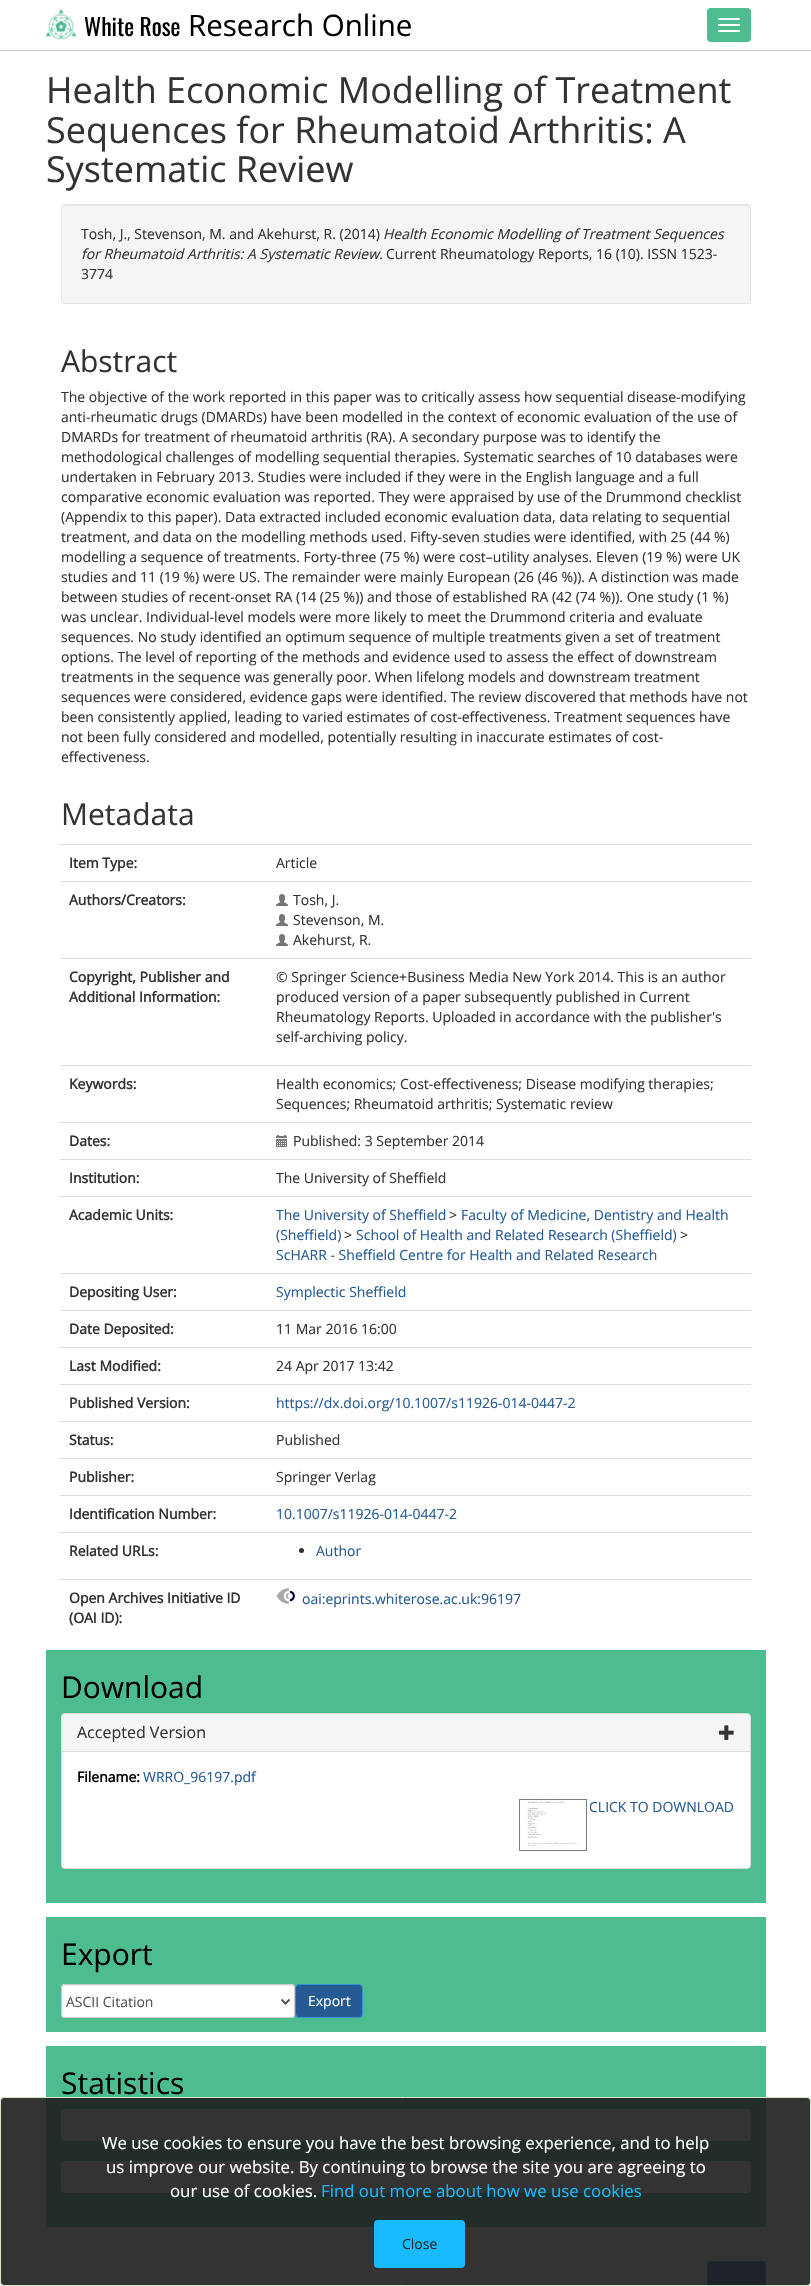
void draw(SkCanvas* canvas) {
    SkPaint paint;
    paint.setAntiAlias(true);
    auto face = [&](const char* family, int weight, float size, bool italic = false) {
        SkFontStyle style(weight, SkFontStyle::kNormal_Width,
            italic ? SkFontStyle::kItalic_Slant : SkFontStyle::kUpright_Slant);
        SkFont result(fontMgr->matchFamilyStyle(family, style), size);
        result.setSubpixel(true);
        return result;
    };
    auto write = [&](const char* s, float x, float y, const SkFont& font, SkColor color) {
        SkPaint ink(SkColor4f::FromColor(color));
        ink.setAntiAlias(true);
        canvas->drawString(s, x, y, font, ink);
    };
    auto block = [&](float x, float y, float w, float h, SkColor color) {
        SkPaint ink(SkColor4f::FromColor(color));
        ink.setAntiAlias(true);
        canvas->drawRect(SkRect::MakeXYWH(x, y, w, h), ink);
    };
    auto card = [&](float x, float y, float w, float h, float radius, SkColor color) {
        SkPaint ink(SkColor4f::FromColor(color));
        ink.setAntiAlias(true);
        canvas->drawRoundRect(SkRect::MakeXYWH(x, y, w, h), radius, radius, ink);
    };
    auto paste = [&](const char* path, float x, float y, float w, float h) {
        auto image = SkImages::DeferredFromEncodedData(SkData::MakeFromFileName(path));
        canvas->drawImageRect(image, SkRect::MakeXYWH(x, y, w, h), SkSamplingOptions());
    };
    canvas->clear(SK_ColorWHITE);
    block(0, 50, 811, 1, SkColorSetRGB(204, 204, 204));
    paste("pic1.png", 46, 9, 31, 31);
    auto kFont1 = face("Oswald", 400, 23.5f);
    write("White Rose", 84, 36, kFont1, SK_ColorBLACK);
    auto kFont2 = face("Open Sans", 400, 29.5f);
    write("Research Online", 188, 36, kFont2, SK_ColorBLACK);
    card(707, 8, 44, 34, 4, SkColorSetRGB(77, 189, 144));
    card(718, 18, 22, 2, 1, SK_ColorWHITE);
    card(718, 24, 22, 2, 1, SK_ColorWHITE);
    card(718, 30, 22, 2, 1, SK_ColorWHITE);
    auto kFont3 = face("Open Sans", 400, 36);
    write("Health Economic Modelling of Treatment", 46, 103, kFont3, SkColorSetRGB(51, 51, 51));
    write("Sequences for Rheumatoid Arthritis: A", 46, 143, kFont3, SkColorSetRGB(51, 51, 51));
    write("Systematic Review", 46, 182, kFont3, SkColorSetRGB(51, 51, 51));
    card(61, 204, 690, 100, 4, SkColorSetRGB(245, 245, 245));
    paint.setColor(SkColorSetRGB(233, 233, 233));
    canvas->drawPath(SkPathBuilder().moveTo(65, 206).lineTo(747, 206).cubicTo(749, 206, 750, 207, 750, 209).lineTo(750, 208).cubicTo(750, 206, 749, 205, 747, 205).lineTo(65, 205).cubicTo(63, 205, 62, 206, 62, 208).lineTo(62, 209).cubicTo(62, 207, 63, 206, 65, 206).close().detach(), paint);
    paint.setStyle(SkPaint::kStroke_Style);
    paint.setStrokeWidth(1);
    paint.setColor(SkColorSetRGB(227, 227, 227));
    canvas->drawRoundRect(SkRect::MakeXYWH(61.5f, 204.5f, 689, 99), 3.5f, 3.5f, paint);
    auto kFont4 = face("Open Sans", 400, 14);
    write("Tosh, J., Stevenson, M. and Akehurst, R. (2014)", 81, 239, kFont4, SkColorSetRGB(51, 51, 51));
    auto kFont5 = face("Open Sans", 400, 14, true);
    write("Health Economic Modelling of Treatment Sequences", 383, 239, kFont5, SkColorSetRGB(51, 51, 51));
    write("for Rheumatoid Arthritis: A Systematic Review.", 81, 259, kFont5, SkColorSetRGB(51, 51, 51));
    write("Current Rheumatology Reports, 16 (10). ISSN 1523-", 386, 259, kFont4, SkColorSetRGB(51, 51, 51));
    write("3774", 81, 279, kFont4, SkColorSetRGB(51, 51, 51));
    auto kFont6 = face("Open Sans", 400, 30);
    write("Abstract", 61, 372, kFont6, SkColorSetRGB(51, 51, 51));
    write("The objective of the work reported in this paper was to critically assess how sequential disease-modifying", 61, 402, kFont4, SkColorSetRGB(51, 51, 51));
    write("anti-rheumatic drugs (DMARDs) have been modelled in the context of economic evaluation of the use of", 61, 422, kFont4, SkColorSetRGB(51, 51, 51));
    write("DMARDs for treatment of rheumatoid arthritis (RA). A secondary purpose was to identify the", 61, 442, kFont4, SkColorSetRGB(51, 51, 51));
    write("methodological challenges of modelling sequential therapies. Systematic searches of 10 databases were", 61, 462, kFont4, SkColorSetRGB(51, 51, 51));
    write("undertaken in February 2013. Studies were included if they were in the English language and a full", 61, 482, kFont4, SkColorSetRGB(51, 51, 51));
    write("comparative economic evaluation was reported. They were appraised by use of the Drummond checklist", 61, 502, kFont4, SkColorSetRGB(51, 51, 51));
    write("(Appendix to this paper). Data extracted included economic evaluation data, data relating to sequential", 61, 522, kFont4, SkColorSetRGB(51, 51, 51));
    write("treatment, and data on the modelling methods used. Fifty-seven studies were identified, with 25 (44 %)", 61, 542, kFont4, SkColorSetRGB(51, 51, 51));
    write("modelling a sequence of treatments. Forty-three (75 %) were cost–utility analyses. Eleven (19 %) were UK", 61, 562, kFont4, SkColorSetRGB(51, 51, 51));
    write("studies and 11 (19 %) were US. The remainder were mainly European (26 (46 %)). A distinction was made", 61, 582, kFont4, SkColorSetRGB(51, 51, 51));
    write("between studies of recent-onset RA (14 (25 %)) and those of established RA (42 (74 %)). One study (1 %)", 61, 602, kFont4, SkColorSetRGB(51, 51, 51));
    write("was unclear. Individual-level models were more likely to meet the Drummond criteria and evaluate", 61, 622, kFont4, SkColorSetRGB(51, 51, 51));
    write("sequences. No study identified an optimum sequence of multiple treatments given a set of treatment", 61, 642, kFont4, SkColorSetRGB(51, 51, 51));
    write("options. The level of reporting of the methods and evidence used to assess the effect of downstream", 61, 662, kFont4, SkColorSetRGB(51, 51, 51));
    write("treatments in the sequence was generally poor. When lifelong models and downstream treatment", 61, 682, kFont4, SkColorSetRGB(51, 51, 51));
    write("sequences were considered, evidence gaps were identified. The review discovered that methods have not", 61, 702, kFont4, SkColorSetRGB(51, 51, 51));
    write("been consistently applied, leading to varied estimates of cost-effectiveness. Treatment sequences have", 61, 722, kFont4, SkColorSetRGB(51, 51, 51));
    write("not been fully considered and modelled, potentially resulting in inaccurate estimates of cost-", 61, 742, kFont4, SkColorSetRGB(51, 51, 51));
    write("effectiveness.", 61, 762, kFont4, SkColorSetRGB(51, 51, 51));
    write("Metadata", 61, 825, kFont6, SkColorSetRGB(51, 51, 51));
    auto kFont7 = face("Open Sans", 700, 14);
    write("Item Type:", 69, 868, kFont7, SkColorSetRGB(51, 51, 51));
    block(60, 844, 691, 1, SkColorSetRGB(221, 221, 221));
    write("Article", 276, 868, kFont4, SkColorSetRGB(51, 51, 51));
    write("Authors/Creators:", 69, 905, kFont7, SkColorSetRGB(51, 51, 51));
    block(60, 881, 691, 1, SkColorSetRGB(221, 221, 221));
    paste("pic2.png", 276, 894, 12, 12);
    write("Tosh, J.", 293, 905, kFont4, SkColorSetRGB(51, 51, 51));
    paste("pic2.png", 276, 914, 12, 12);
    write("Stevenson, M.", 293, 925, kFont4, SkColorSetRGB(51, 51, 51));
    paste("pic2.png", 276, 934, 12, 12);
    write("Akehurst, R.", 293, 945, kFont4, SkColorSetRGB(51, 51, 51));
    write("Copyright, Publisher and", 69, 982, kFont7, SkColorSetRGB(51, 51, 51));
    write("Additional Information:", 69, 1002, kFont7, SkColorSetRGB(51, 51, 51));
    block(60, 958, 691, 1, SkColorSetRGB(221, 221, 221));
    write("© Springer Science+Business Media New York 2014. This is an author", 276, 982, kFont4, SkColorSetRGB(51, 51, 51));
    write("produced version of a paper subsequently published in Current", 276, 1002, kFont4, SkColorSetRGB(51, 51, 51));
    write("Rheumatology Reports. Uploaded in accordance with the publisher's", 276, 1022, kFont4, SkColorSetRGB(51, 51, 51));
    write("self-archiving policy.", 276, 1042, kFont4, SkColorSetRGB(51, 51, 51));
    write("Keywords:", 69, 1089, kFont7, SkColorSetRGB(51, 51, 51));
    block(60, 1065, 691, 1, SkColorSetRGB(221, 221, 221));
    write("Health economics; Cost-effectiveness; Disease modifying therapies;", 276, 1089, kFont4, SkColorSetRGB(51, 51, 51));
    write("Sequences; Rheumatoid arthritis; Systematic review", 276, 1109, kFont4, SkColorSetRGB(51, 51, 51));
    write("Dates:", 69, 1146, kFont7, SkColorSetRGB(51, 51, 51));
    block(60, 1122, 691, 1, SkColorSetRGB(221, 221, 221));
    paste("pic3.png", 276, 1135, 11, 12);
    write("Published: 3 September 2014", 293, 1146, kFont4, SkColorSetRGB(51, 51, 51));
    write("Institution:", 69, 1183, kFont7, SkColorSetRGB(51, 51, 51));
    block(60, 1159, 691, 1, SkColorSetRGB(221, 221, 221));
    write("The University of Sheffield", 276, 1183, kFont4, SkColorSetRGB(51, 51, 51));
    write("Academic Units:", 69, 1220, kFont7, SkColorSetRGB(51, 51, 51));
    block(60, 1196, 691, 1, SkColorSetRGB(221, 221, 221));
    write("The University of Sheffield", 276, 1220, kFont4, SkColorSetRGB(37, 90, 146));
    write(">", 449, 1220, kFont4, SkColorSetRGB(51, 51, 51));
    write("Faculty of Medicine, Dentistry and Health", 461, 1220, kFont4, SkColorSetRGB(37, 90, 146));
    write("(Sheffield)", 276, 1240, kFont4, SkColorSetRGB(37, 90, 146));
    write(">", 344, 1240, kFont4, SkColorSetRGB(51, 51, 51));
    write("School of Health and Related Research (Sheffield)", 356, 1240, kFont4, SkColorSetRGB(37, 90, 146));
    write(">", 680, 1240, kFont4, SkColorSetRGB(51, 51, 51));
    write("ScHARR - Sheffield Centre for Health and Related Research", 276, 1260, kFont4, SkColorSetRGB(37, 90, 146));
    write("Depositing User:", 69, 1297, kFont7, SkColorSetRGB(51, 51, 51));
    block(60, 1273, 691, 1, SkColorSetRGB(221, 221, 221));
    write("Symplectic Sheffield", 276, 1297, kFont4, SkColorSetRGB(37, 90, 146));
    write("Date Deposited:", 69, 1334, kFont7, SkColorSetRGB(51, 51, 51));
    block(60, 1310, 691, 1, SkColorSetRGB(221, 221, 221));
    write("11 Mar 2016 16:00", 276, 1334, kFont4, SkColorSetRGB(51, 51, 51));
    write("Last Modified:", 69, 1371, kFont7, SkColorSetRGB(51, 51, 51));
    block(60, 1347, 691, 1, SkColorSetRGB(221, 221, 221));
    write("24 Apr 2017 13:42", 276, 1371, kFont4, SkColorSetRGB(51, 51, 51));
    write("Published Version:", 69, 1408, kFont7, SkColorSetRGB(51, 51, 51));
    block(60, 1384, 691, 1, SkColorSetRGB(221, 221, 221));
    write("https://dx.doi.org/10.1007/s11926-014-0447-2", 276, 1408, kFont4, SkColorSetRGB(37, 90, 146));
    write("Status:", 69, 1445, kFont7, SkColorSetRGB(51, 51, 51));
    block(60, 1421, 691, 1, SkColorSetRGB(221, 221, 221));
    write("Published", 276, 1445, kFont4, SkColorSetRGB(51, 51, 51));
    write("Publisher:", 69, 1482, kFont7, SkColorSetRGB(51, 51, 51));
    block(60, 1458, 691, 1, SkColorSetRGB(221, 221, 221));
    write("Springer Verlag", 276, 1482, kFont4, SkColorSetRGB(51, 51, 51));
    write("Identification Number:", 69, 1519, kFont7, SkColorSetRGB(51, 51, 51));
    block(60, 1495, 691, 1, SkColorSetRGB(221, 221, 221));
    write("10.1007/s11926-014-0447-2", 276, 1519, kFont4, SkColorSetRGB(37, 90, 146));
    write("Related URLs:", 69, 1556, kFont7, SkColorSetRGB(51, 51, 51));
    block(60, 1532, 691, 1, SkColorSetRGB(221, 221, 221));
    paint.setStyle(SkPaint::kFill_Style);
    paint.setColor(SkColorSetRGB(51, 51, 51));
    canvas->drawCircle(301.5f, 1550.5f, 2.5f, paint);
    write("Author", 316, 1556, kFont4, SkColorSetRGB(37, 90, 146));
    write("Open Archives Initiative ID", 69, 1603, kFont7, SkColorSetRGB(51, 51, 51));
    write("(OAI ID):", 69, 1623, kFont7, SkColorSetRGB(51, 51, 51));
    block(60, 1579, 691, 1, SkColorSetRGB(221, 221, 221));
    paste("pic4.png", 276, 1588, 19, 16);
    write("oai:eprints.whiterose.ac.uk:96197", 302, 1604, kFont4, SkColorSetRGB(37, 90, 146));
    block(46, 1650, 720, 253, SkColorSetRGB(77, 189, 144));
    write("Download", 61, 1698, kFont6, SK_ColorBLACK);
    paint.setColor(SK_ColorWHITE);
    canvas->drawRoundRect(SkRect::MakeXYWH(61.5f, 1713.5f, 689, 155), 3.5f, 3.5f, paint);
    paint.setStyle(SkPaint::kStroke_Style);
    paint.setColor(SkColorSetRGB(221, 221, 221));
    canvas->drawRoundRect(SkRect::MakeXYWH(61.5f, 1713.5f, 689, 155), 3.5f, 3.5f, paint);
    paint.setStyle(SkPaint::kFill_Style);
    paint.setColor(SkColorSetRGB(245, 245, 245));
    canvas->drawPath(SkPathBuilder().moveTo(65, 1714).lineTo(747, 1714).cubicTo(748.5f, 1714, 750, 1715.5f, 750, 1717).lineTo(750, 1751).lineTo(62, 1751).lineTo(62, 1717).cubicTo(62, 1715.5f, 63.5f, 1714, 65, 1714).close().detach(), paint);
    auto kFont8 = face("Open Sans", 400, 16);
    write("Accepted Version", 77, 1738, kFont8, SkColorSetRGB(51, 51, 51));
    paste("pic5.png", 719, 1725, 15, 15);
    block(62, 1751, 688, 1, SkColorSetRGB(221, 221, 221));
    write("Filename:", 77, 1782, kFont7, SK_ColorBLACK);
    write("WRRO_96197.pdf", 143, 1782, kFont4, SkColorSetRGB(37, 90, 146));
    paste("pic6.png", 519, 1799, 68, 52);
    write("CLICK TO DOWNLOAD", 589, 1812, kFont4, SkColorSetRGB(37, 90, 146));
    block(46, 1917, 720, 115, SkColorSetRGB(77, 189, 144));
    write("Export", 61, 1965, kFont6, SK_ColorBLACK);
    card(61, 1984, 234, 34, 4, SK_ColorWHITE);
    paint.setColor(SkColorSetRGB(236, 236, 236));
    canvas->drawPath(SkPathBuilder().moveTo(65, 1986).lineTo(291, 1986).cubicTo(293, 1986, 294, 1987, 294, 1989).cubicTo(294, 1987, 293, 1985, 291, 1985).lineTo(65, 1985).cubicTo(63, 1985, 62, 1987, 62, 1989).cubicTo(62, 1987, 63, 1986, 65, 1986).close().detach(), paint);
    paint.setStyle(SkPaint::kStroke_Style);
    paint.setColor(SkColorSetRGB(204, 204, 204));
    canvas->drawRoundRect(SkRect::MakeXYWH(61.5f, 1984.5f, 233, 33), 3.5f, 3.5f, paint);
    paint.setStrokeWidth(2);
    paint.setColor(SkColorSetRGB(85, 85, 85));
    canvas->drawPath(SkPathBuilder().moveTo(281.5f, 1999.5f).lineTo(285.5f, 2003.5f).lineTo(289.5f, 1999.5f).detach(), paint);
    write("ASCII Citation", 66, 2007, kFont4, SkColorSetRGB(85, 85, 85));
    paint.setStyle(SkPaint::kFill_Style);
    paint.setColor(SkColorSetRGB(37, 90, 146));
    canvas->drawRoundRect(SkRect::MakeXYWH(295.5f, 1984.5f, 67, 33), 3.5f, 3.5f, paint);
    paint.setStyle(SkPaint::kStroke_Style);
    paint.setStrokeWidth(1);
    paint.setColor(SkColorSetRGB(51, 148, 213));
    canvas->drawRoundRect(SkRect::MakeXYWH(295.5f, 1984.5f, 67, 33), 3.5f, 3.5f, paint);
    write("Export", 308, 2006, kFont4, SK_ColorWHITE);
    block(46, 2046, 720, 181, SkColorSetRGB(77, 189, 144));
    write("Statistics", 61, 2094, kFont6, SK_ColorBLACK);
    card(61, 2109, 690, 32, 4, SK_ColorWHITE);
    card(61, 2161, 690, 32, 4, SK_ColorWHITE);
    paint.setStyle(SkPaint::kFill_Style);
    paint.setColor(SkColorSetRGB(37, 90, 146));
    canvas->drawRoundRect(SkRect::MakeXYWH(707.5f, 2261.5f, 58, 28), 2.5f, 2.5f, paint);
    paint.setStyle(SkPaint::kStroke_Style);
    paint.setColor(SkColorSetRGB(51, 148, 213));
    canvas->drawRoundRect(SkRect::MakeXYWH(707.5f, 2261.5f, 58, 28), 2.5f, 2.5f, paint);
    paint.setStyle(SkPaint::kFill_Style);
    paint.setColor(SkColorSetARGB(230, 29, 29, 29));
    canvas->drawRoundRect(SkRect::MakeXYWH(0.5f, 2097.5f, 810, 188), 3.5f, 3.5f, paint);
    paint.setStyle(SkPaint::kStroke_Style);
    paint.setColor(SkColorSetRGB(214, 233, 198));
    canvas->drawRoundRect(SkRect::MakeXYWH(0.5f, 2097.5f, 810, 188), 3.5f, 3.5f, paint);
    auto kFont9 = face("Open Sans", 400, 16.8f);
    write("We use cookies to ensure you have the best browsing experience, and to help", 102, 2149, kFont9, SK_ColorWHITE);
    write("us improve our website. By continuing to browse the site you are agreeing to", 106, 2173, kFont9, SK_ColorWHITE);
    write("our use of cookies.", 170, 2197, kFont9, SK_ColorWHITE);
    write("Find out more about how we use cookies", 321, 2197, kFont9, SkColorSetRGB(24, 187, 255));
    card(374, 2220, 91, 48, 4, SkColorSetRGB(24, 187, 255));
    write("Close", 402, 2249, kFont4, SkColorSetRGB(43, 44, 46));
}
